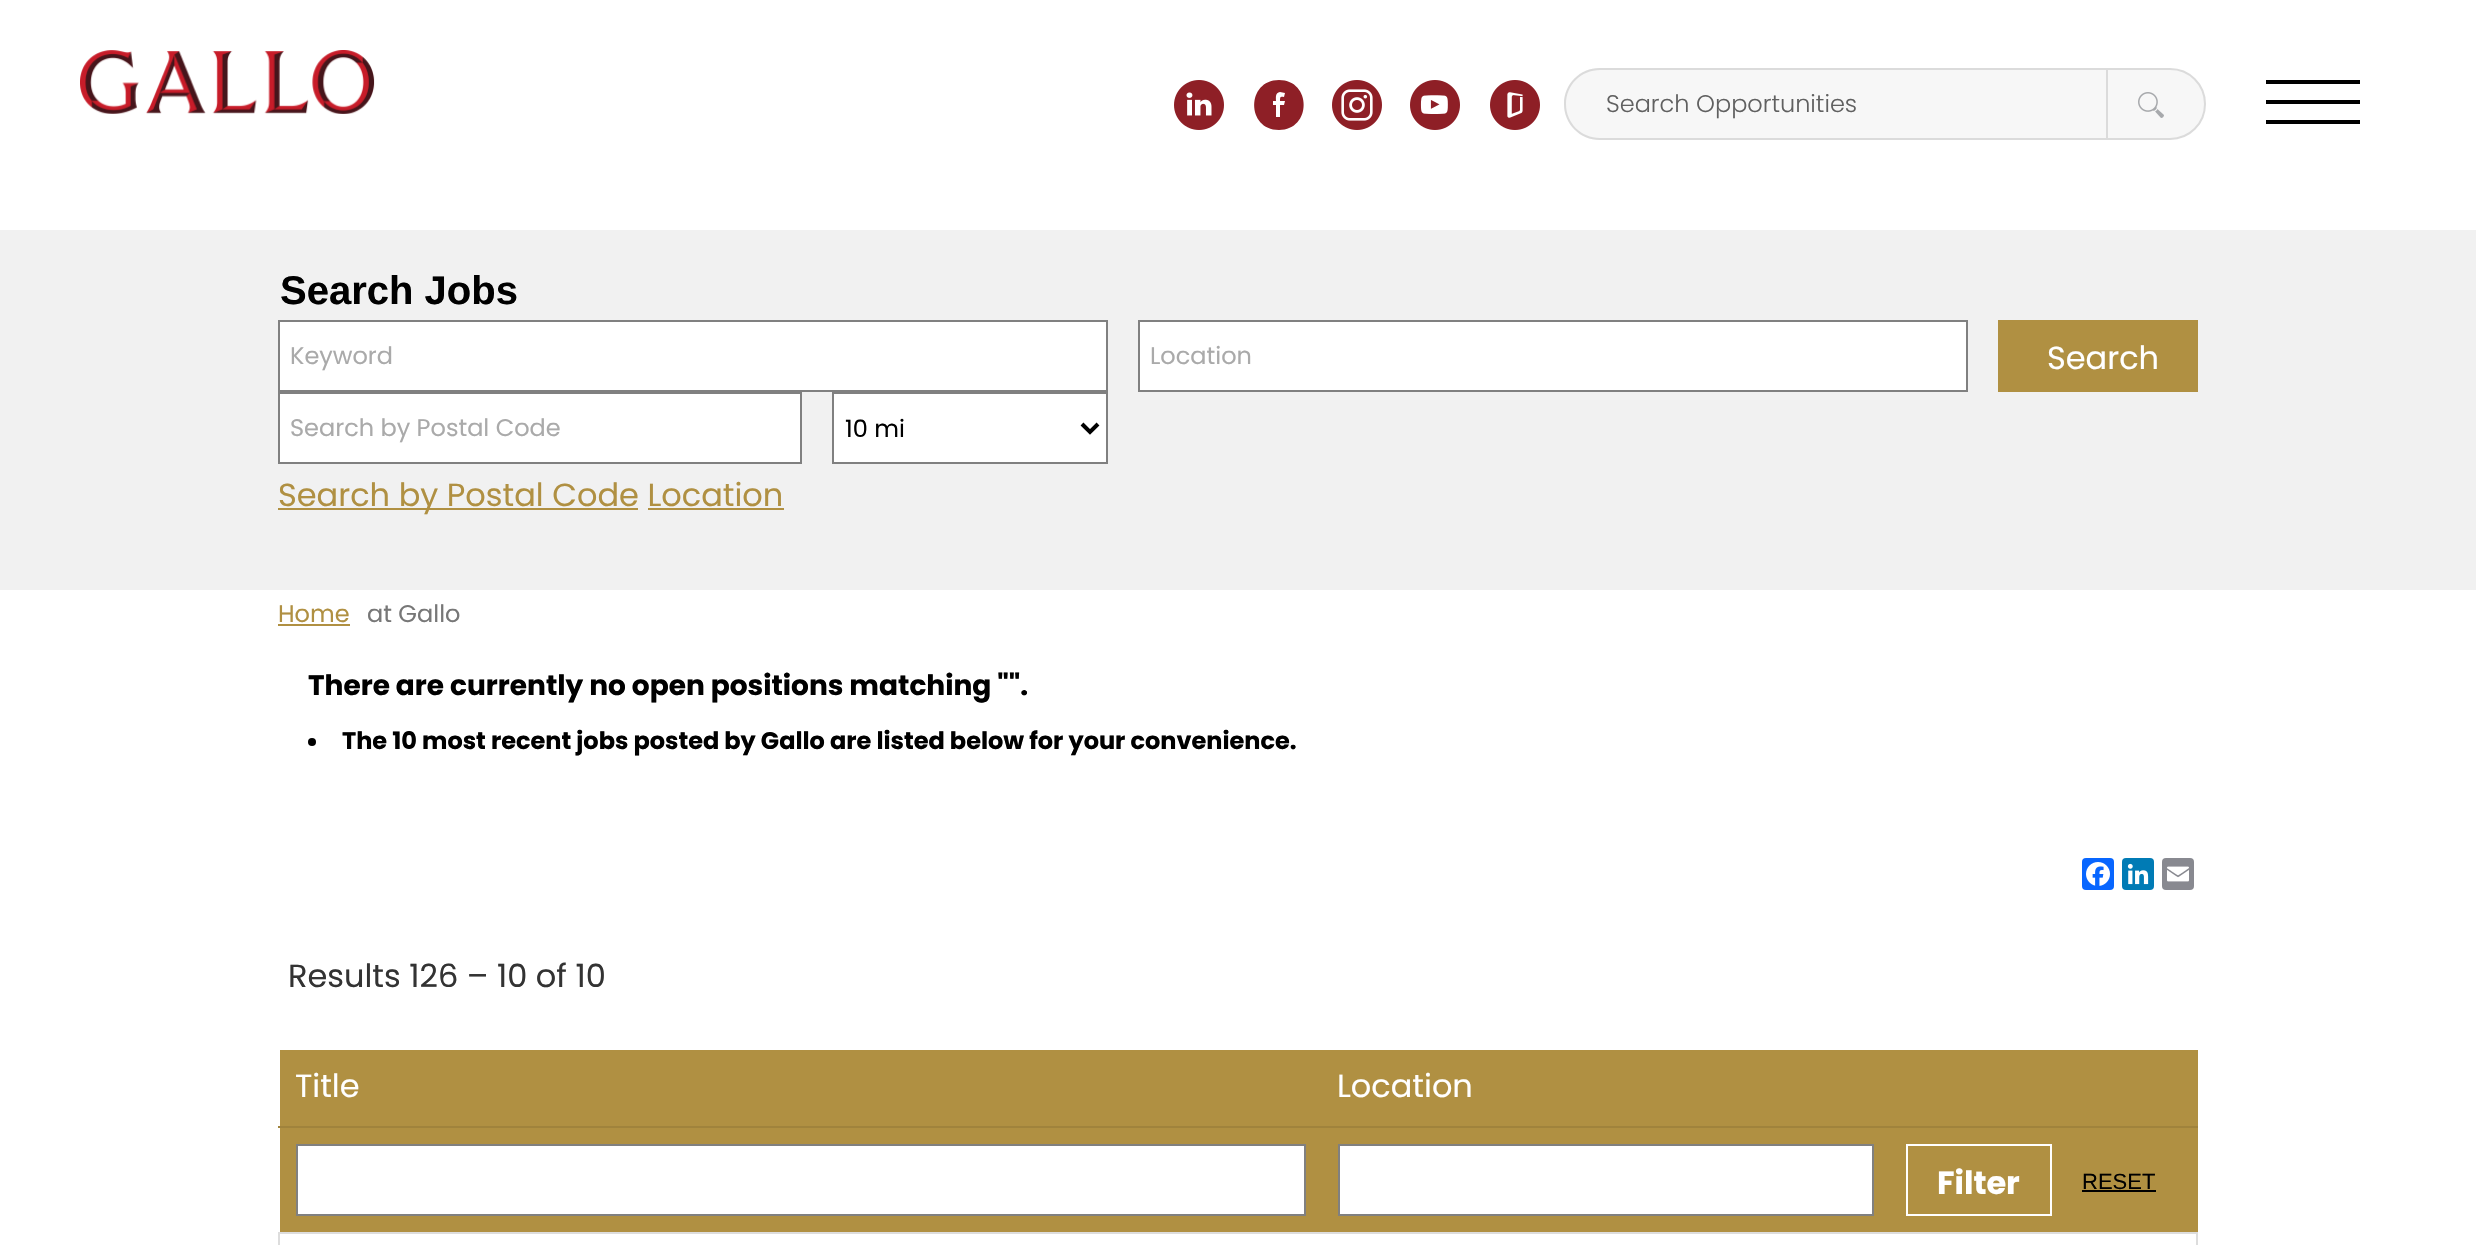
void draw(SkCanvas* canvas) {
    SkPaint paint;
    paint.setAntiAlias(true);
    auto face = [&](const char* family, int weight, float size, bool italic = false) {
        SkFontStyle style(weight, SkFontStyle::kNormal_Width,
            italic ? SkFontStyle::kItalic_Slant : SkFontStyle::kUpright_Slant);
        SkFont result(fontMgr->matchFamilyStyle(family, style), size);
        result.setSubpixel(true);
        return result;
    };
    auto write = [&](const char* s, float x, float y, const SkFont& font, SkColor color) {
        SkPaint ink(SkColor4f::FromColor(color));
        ink.setAntiAlias(true);
        canvas->drawString(s, x, y, font, ink);
    };
    auto block = [&](float x, float y, float w, float h, SkColor color) {
        SkPaint ink(SkColor4f::FromColor(color));
        ink.setAntiAlias(true);
        canvas->drawRect(SkRect::MakeXYWH(x, y, w, h), ink);
    };
    auto card = [&](float x, float y, float w, float h, float radius, SkColor color) {
        SkPaint ink(SkColor4f::FromColor(color));
        ink.setAntiAlias(true);
        canvas->drawRoundRect(SkRect::MakeXYWH(x, y, w, h), radius, radius, ink);
    };
    auto paste = [&](const char* path, float x, float y, float w, float h) {
        auto image = SkImages::DeferredFromEncodedData(SkData::MakeFromFileName(path));
        canvas->drawImageRect(image, SkRect::MakeXYWH(x, y, w, h), SkSamplingOptions());
    };
    canvas->clear(SK_ColorWHITE);
    paste("pic1.png", 80, 50, 295, 64);
    paste("pic2.png", 1174, 80, 50, 50);
    paint.setColor(SkColorSetRGB(142, 31, 38));
    canvas->drawPath(SkPathBuilder().moveTo(1279, 80).cubicTo(1246, 80, 1246, 130, 1279, 130).cubicTo(1312, 130, 1312, 80, 1279, 80).close().moveTo(1285, 101).lineTo(1284, 105).lineTo(1280, 105).lineTo(1280, 117).lineTo(1276, 117).lineTo(1276, 105).lineTo(1273, 105).lineTo(1273, 101).lineTo(1276, 101).cubicTo(1276, 97, 1275, 93, 1280, 92).lineTo(1285, 93).lineTo(1284, 97).cubicTo(1280, 96, 1280, 97, 1280, 101).close().detach(), paint);
    paste("pic3.png", 1332, 80, 50, 50);
    paste("pic4.png", 1410, 80, 50, 50);
    paste("pic5.png", 1490, 80, 50, 50);
    paint.setColor(SkColorSetRGB(247, 247, 247));
    canvas->drawPath(SkPathBuilder().moveTo(1600, 68).lineTo(2106, 68).lineTo(2106, 140).lineTo(1600, 140).cubicTo(1580, 140, 1564, 124, 1564, 104).cubicTo(1564, 84, 1580, 68, 1600, 68).close().detach(), paint);
    paint.setColor(SkColorSetRGB(219, 219, 219));
    canvas->drawPath(SkPathBuilder(SkPathFillType::kEvenOdd).moveTo(1600, 68).lineTo(2106, 68).lineTo(2106, 140).lineTo(1600, 140).cubicTo(1580, 140, 1564, 124, 1564, 104).cubicTo(1564, 84, 1580, 68, 1600, 68).close().moveTo(1600, 70).lineTo(2106, 70).lineTo(2106, 138).lineTo(1600, 138).cubicTo(1581, 138, 1566, 123, 1566, 104).cubicTo(1566, 85, 1581, 70, 1600, 70).close().detach(), paint);
    auto kFont1 = face("Poppins", 300, 24);
    write("Search Opportunities", 1606, 112, kFont1, SkColorSetRGB(96, 96, 96));
    paint.setColor(SkColorSetRGB(247, 247, 247));
    canvas->drawPath(SkPathBuilder().moveTo(2107, 69).lineTo(2170, 69).cubicTo(2189.5f, 69, 2205, 84.5f, 2205, 104).cubicTo(2205, 123.5f, 2189.5f, 139, 2170, 139).lineTo(2107, 139).close().detach(), paint);
    paint.setStyle(SkPaint::kStroke_Style);
    paint.setStrokeWidth(2);
    paint.setColor(SkColorSetRGB(219, 219, 219));
    canvas->drawPath(SkPathBuilder().moveTo(2107, 69).lineTo(2170, 69).cubicTo(2189.5f, 69, 2205, 84.5f, 2205, 104).cubicTo(2205, 123.5f, 2189.5f, 139, 2170, 139).lineTo(2107, 139).close().detach(), paint);
    paste("pic6.png", 2138, 92, 26, 26);
    block(2266, 80, 94, 4, SK_ColorBLACK);
    block(2266, 100, 94, 4, SK_ColorBLACK);
    block(2266, 120, 94, 4, SK_ColorBLACK);
    block(0, 230, 2476, 360, SkColorSetRGB(241, 241, 241));
    auto kFont2 = face("Liberation Sans", 700, 40);
    write("Search Jobs", 280, 304, kFont2, SK_ColorBLACK);
    paint.setStyle(SkPaint::kFill_Style);
    paint.setColor(SK_ColorWHITE);
    canvas->drawRect(SkRect::MakeXYWH(279, 321, 828, 70), paint);
    paint.setStyle(SkPaint::kStroke_Style);
    paint.setColor(SkColorSetRGB(128, 128, 128));
    canvas->drawRect(SkRect::MakeXYWH(279, 321, 828, 70), paint);
    auto kFont3 = face("Poppins", 400, 24);
    write("Keyword", 290, 364, kFont3, SkColorSetRGB(170, 170, 170));
    paint.setStyle(SkPaint::kFill_Style);
    paint.setColor(SK_ColorWHITE);
    canvas->drawRect(SkRect::MakeXYWH(1139, 321, 828, 70), paint);
    paint.setStyle(SkPaint::kStroke_Style);
    paint.setColor(SkColorSetRGB(128, 128, 128));
    canvas->drawRect(SkRect::MakeXYWH(1139, 321, 828, 70), paint);
    write("Location", 1150, 364, kFont3, SkColorSetRGB(170, 170, 170));
    block(1998, 320, 200, 72, SkColorSetRGB(176, 144, 66));
    auto kFont4 = face("Poppins", 400, 32);
    write("Search", 2047, 369, kFont4, SK_ColorWHITE);
    paint.setStyle(SkPaint::kFill_Style);
    paint.setColor(SK_ColorWHITE);
    canvas->drawRect(SkRect::MakeXYWH(279, 393, 522, 70), paint);
    paint.setStyle(SkPaint::kStroke_Style);
    paint.setColor(SkColorSetRGB(128, 128, 128));
    canvas->drawRect(SkRect::MakeXYWH(279, 393, 522, 70), paint);
    write("Search by Postal Code", 290, 436, kFont3, SkColorSetRGB(170, 170, 170));
    paint.setStyle(SkPaint::kFill_Style);
    paint.setColor(SK_ColorWHITE);
    canvas->drawRect(SkRect::MakeXYWH(833, 393, 274, 70), paint);
    paint.setStyle(SkPaint::kStroke_Style);
    paint.setColor(SkColorSetRGB(128, 128, 128));
    canvas->drawRect(SkRect::MakeXYWH(833, 393, 274, 70), paint);
    paint.setStrokeWidth(4);
    paint.setColor(SK_ColorBLACK);
    canvas->drawPath(SkPathBuilder().moveTo(1082, 424).lineTo(1090, 432).lineTo(1098, 424).detach(), paint);
    write("10 mi", 845, 437, kFont3, SK_ColorBLACK);
    block(278, 508, 360, 2, SkColorSetRGB(176, 144, 66));
    write("Search by Postal Code Location", 278, 506, kFont4, SkColorSetRGB(176, 144, 66));
    block(648, 508, 136, 2, SkColorSetRGB(176, 144, 66));
    write("Home", 278, 622, kFont3, SkColorSetRGB(176, 144, 66));
    block(278, 624, 72, 2, SkColorSetRGB(176, 144, 66));
    write("at Gallo", 367, 622, kFont3, SkColorSetRGB(119, 119, 119));
    auto kFont5 = face("Poppins", 700, 28);
    write("There are currently no open positions matching \"\".", 308, 695, kFont5, SK_ColorBLACK);
    paint.setStyle(SkPaint::kFill_Style);
    canvas->drawCircle(312, 742, 4, paint);
    auto kFont6 = face("Poppins", 700, 24);
    write("The 10 most recent jobs posted by Gallo are listed below for your convenience.", 342, 749, kFont6, SK_ColorBLACK);
    card(2082, 858, 32, 32, 4, SkColorSetRGB(8, 102, 255));
    paste("pic7.png", 2086, 862, 24, 24);
    card(2122, 858, 32, 32, 4, SkColorSetRGB(0, 123, 181));
    paste("pic8.png", 2127, 863, 22, 22);
    card(2162, 858, 32, 32, 4, SkColorSetRGB(136, 137, 144));
    paste("pic9.png", 2167, 866, 22, 16);
    write("Results 126 – 10 of 10", 288, 987, kFont4, SkColorSetRGB(51, 51, 51));
    block(280, 1050, 1918, 76, SkColorSetRGB(176, 144, 66));
    block(278, 1126, 1920, 2, SkColorSetRGB(160, 131, 60));
    write("Title", 295, 1097, kFont4, SK_ColorWHITE);
    write("Location", 1337, 1097, kFont4, SK_ColorWHITE);
    block(280, 1128, 1918, 104, SkColorSetRGB(176, 144, 66));
    paint.setColor(SK_ColorWHITE);
    canvas->drawRect(SkRect::MakeXYWH(297, 1145, 1008, 70), paint);
    paint.setStyle(SkPaint::kStroke_Style);
    paint.setStrokeWidth(2);
    paint.setColor(SkColorSetRGB(128, 128, 128));
    canvas->drawRect(SkRect::MakeXYWH(297, 1145, 1008, 70), paint);
    paint.setStyle(SkPaint::kFill_Style);
    paint.setColor(SK_ColorWHITE);
    canvas->drawRect(SkRect::MakeXYWH(1339, 1145, 534, 70), paint);
    paint.setStyle(SkPaint::kStroke_Style);
    paint.setColor(SkColorSetRGB(128, 128, 128));
    canvas->drawRect(SkRect::MakeXYWH(1339, 1145, 534, 70), paint);
    paint.setColor(SK_ColorWHITE);
    canvas->drawRect(SkRect::MakeXYWH(1907, 1145, 144, 70), paint);
    auto kFont7 = face("Poppins", 700, 32);
    write("Filter", 1937, 1194, kFont7, SK_ColorWHITE);
    auto kFont8 = face("Liberation Sans", 400, 22);
    write("RESET", 2082, 1189, kFont8, SK_ColorBLACK);
    block(2082, 1190, 74, 2, SK_ColorBLACK);
    block(2196, 1232, 2, 13, SkColorSetRGB(221, 221, 221));
    block(278, 1232, 2, 13, SkColorSetRGB(221, 221, 221));
    block(278, 1232, 1920, 2, SkColorSetRGB(221, 221, 221));
}
